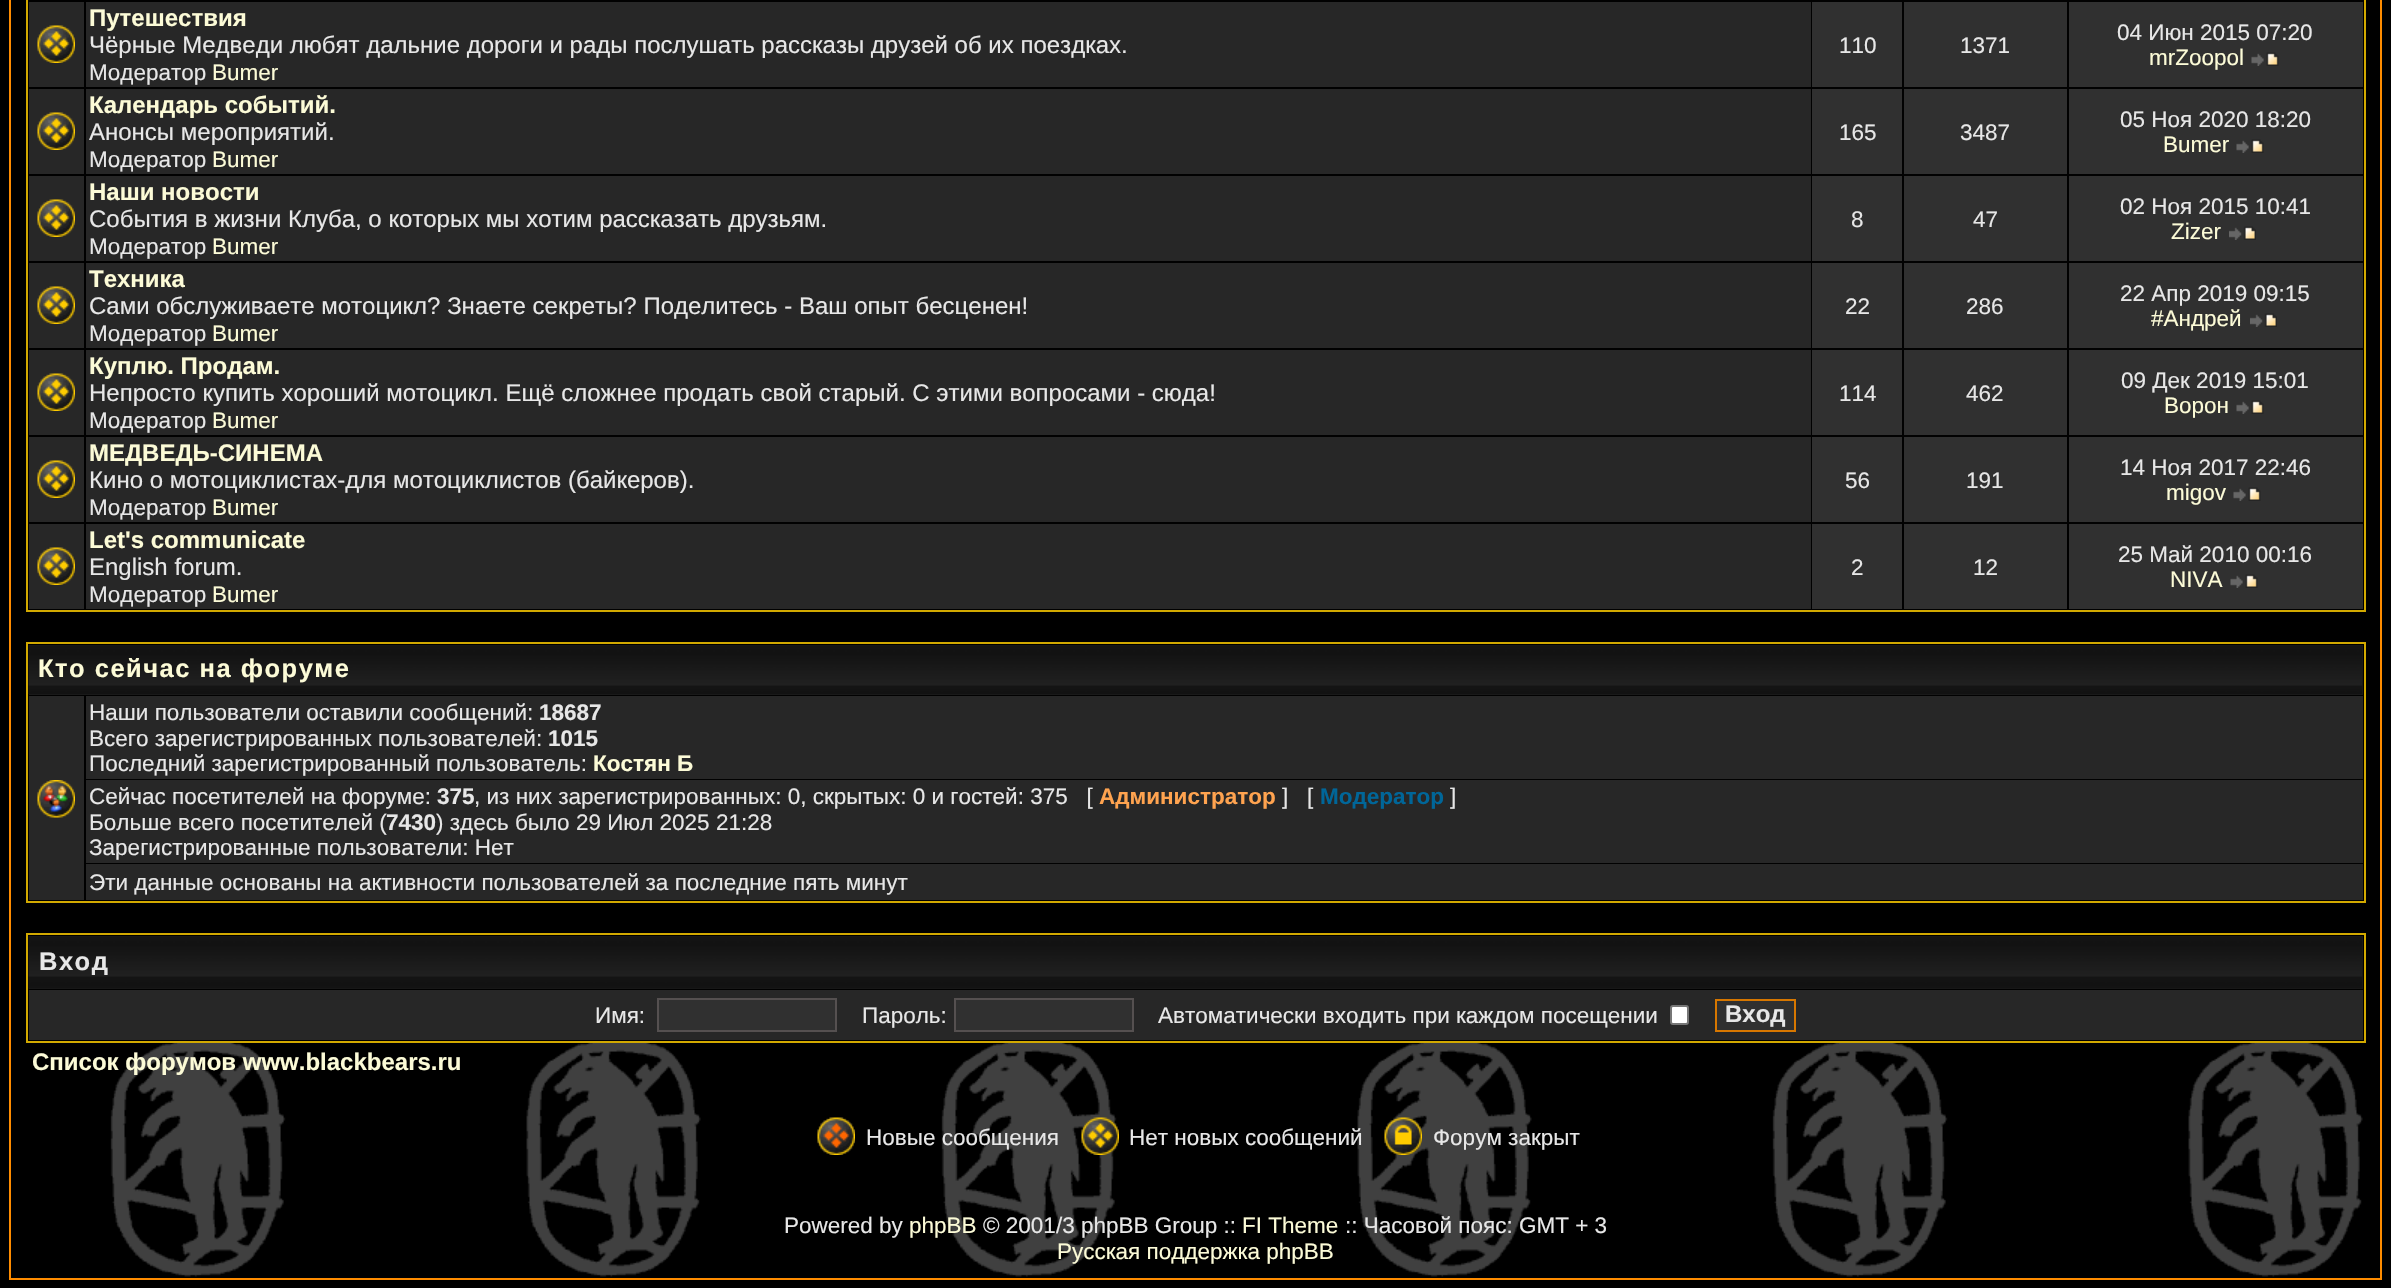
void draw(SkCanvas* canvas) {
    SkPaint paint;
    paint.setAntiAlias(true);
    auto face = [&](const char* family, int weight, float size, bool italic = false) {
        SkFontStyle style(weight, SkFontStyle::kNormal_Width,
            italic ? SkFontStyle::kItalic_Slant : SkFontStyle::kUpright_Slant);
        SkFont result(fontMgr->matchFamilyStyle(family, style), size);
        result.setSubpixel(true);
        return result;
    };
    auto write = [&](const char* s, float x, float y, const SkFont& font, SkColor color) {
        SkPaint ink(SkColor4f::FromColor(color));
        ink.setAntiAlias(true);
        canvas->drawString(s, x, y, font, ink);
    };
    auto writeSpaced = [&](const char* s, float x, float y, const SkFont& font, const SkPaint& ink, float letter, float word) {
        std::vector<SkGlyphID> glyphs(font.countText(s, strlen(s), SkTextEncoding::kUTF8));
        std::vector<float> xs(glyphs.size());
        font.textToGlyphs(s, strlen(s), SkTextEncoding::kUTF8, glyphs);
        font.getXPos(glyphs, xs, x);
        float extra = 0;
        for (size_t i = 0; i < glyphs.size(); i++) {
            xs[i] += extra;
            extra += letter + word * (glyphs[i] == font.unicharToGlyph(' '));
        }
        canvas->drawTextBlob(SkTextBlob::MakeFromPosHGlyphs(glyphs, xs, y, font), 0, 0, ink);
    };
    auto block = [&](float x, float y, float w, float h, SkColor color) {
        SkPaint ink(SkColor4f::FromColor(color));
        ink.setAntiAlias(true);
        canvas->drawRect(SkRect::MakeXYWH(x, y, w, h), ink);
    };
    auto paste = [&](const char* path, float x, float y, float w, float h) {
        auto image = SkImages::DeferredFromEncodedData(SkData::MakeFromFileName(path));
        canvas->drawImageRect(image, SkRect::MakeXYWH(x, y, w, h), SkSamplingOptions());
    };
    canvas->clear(SK_ColorWHITE);
    paste("pic1.png", 0, 0, 2391, 1288);
    paint.setStyle(SkPaint::kStroke_Style);
    paint.setStrokeWidth(2);
    paint.setColor(SkColorSetRGB(255, 140, 0));
    canvas->drawRect(SkRect::MakeXYWH(10, -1, 2371, 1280), paint);
    block(110, 0, 2253, 527, SkColorSetRGB(1, 1, 1));
    paint.setColor(SkColorSetRGB(210, 169, 0));
    canvas->drawRect(SkRect::MakeXYWH(27, -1, 2338, 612), paint);
    block(29, 2, 55, 85, SkColorSetRGB(39, 39, 39));
    paste("pic2.png", 37, 25, 38, 38);
    block(86, 2, 1725, 85, SkColorSetRGB(39, 39, 39));
    auto kFont1 = face("Liberation Sans", 700, 24);
    write("Путешествия", 89, 26, kFont1, SkColorSetRGB(252, 251, 215));
    auto kFont2 = face("Liberation Sans", 400, 24);
    write("Чёрные Медведи любят дальние дороги и рады послушать рассказы друзей об их поездках.", 89, 53, kFont2, SkColorSetRGB(231, 231, 231));
    auto kFont3 = face("Liberation Sans", 400, 22.5f);
    write("Модератор", 89, 80, kFont3, SkColorSetRGB(231, 231, 231));
    write("Bumer", 212, 80, kFont3, SkColorSetRGB(252, 251, 215));
    block(1812, 2, 90, 85, SkColorSetRGB(48, 48, 48));
    write("110", 1839, 53, kFont3, SkColorSetRGB(231, 231, 231));
    block(1904, 2, 163, 85, SkColorSetRGB(48, 48, 48));
    write("1371", 1960, 53, kFont3, SkColorSetRGB(231, 231, 231));
    block(2069, 2, 294, 85, SkColorSetRGB(48, 48, 48));
    write("04 Июн 2015 07:20", 2117, 40, kFont3, SkColorSetRGB(231, 231, 231));
    write("mrZoopol", 2149, 65, kFont3, SkColorSetRGB(252, 251, 215));
    paste("pic3.png", 2251, 52, 28, 14);
    block(29, 89, 55, 85, SkColorSetRGB(39, 39, 39));
    paste("pic2.png", 37, 112, 38, 38);
    block(86, 89, 1725, 85, SkColorSetRGB(39, 39, 39));
    write("Календарь событий.", 89, 113, kFont1, SkColorSetRGB(252, 251, 215));
    write("Анонсы мероприятий.", 89, 140, kFont2, SkColorSetRGB(231, 231, 231));
    write("Модератор", 89, 167, kFont3, SkColorSetRGB(231, 231, 231));
    write("Bumer", 212, 167, kFont3, SkColorSetRGB(252, 251, 215));
    block(1812, 89, 90, 85, SkColorSetRGB(48, 48, 48));
    write("165", 1839, 140, kFont3, SkColorSetRGB(231, 231, 231));
    block(1904, 89, 163, 85, SkColorSetRGB(48, 48, 48));
    write("3487", 1960, 140, kFont3, SkColorSetRGB(231, 231, 231));
    block(2069, 89, 294, 85, SkColorSetRGB(48, 48, 48));
    write("05 Ноя 2020 18:20", 2120, 127, kFont3, SkColorSetRGB(231, 231, 231));
    write("Bumer", 2163, 152, kFont3, SkColorSetRGB(252, 251, 215));
    paste("pic3.png", 2236, 139, 28, 14);
    block(29, 176, 55, 85, SkColorSetRGB(39, 39, 39));
    paste("pic2.png", 37, 199, 38, 38);
    block(86, 176, 1725, 85, SkColorSetRGB(39, 39, 39));
    write("Наши новости", 89, 200, kFont1, SkColorSetRGB(252, 251, 215));
    write("События в жизни Клуба, о которых мы хотим рассказать друзьям.", 89, 227, kFont2, SkColorSetRGB(231, 231, 231));
    write("Модератор", 89, 254, kFont3, SkColorSetRGB(231, 231, 231));
    write("Bumer", 212, 254, kFont3, SkColorSetRGB(252, 251, 215));
    block(1812, 176, 90, 85, SkColorSetRGB(48, 48, 48));
    write("8", 1851, 227, kFont3, SkColorSetRGB(231, 231, 231));
    block(1904, 176, 163, 85, SkColorSetRGB(48, 48, 48));
    write("47", 1973, 227, kFont3, SkColorSetRGB(231, 231, 231));
    block(2069, 176, 294, 85, SkColorSetRGB(48, 48, 48));
    write("02 Ноя 2015 10:41", 2120, 214, kFont3, SkColorSetRGB(231, 231, 231));
    write("Zizer", 2171, 239, kFont3, SkColorSetRGB(252, 251, 215));
    paste("pic4.png", 2229, 226, 27, 14);
    block(29, 263, 55, 85, SkColorSetRGB(39, 39, 39));
    paste("pic2.png", 37, 286, 38, 38);
    block(86, 263, 1725, 85, SkColorSetRGB(39, 39, 39));
    write("Техника", 89, 287, kFont1, SkColorSetRGB(252, 251, 215));
    write("Сами обслуживаете мотоцикл? Знаете секреты? Поделитесь - Ваш опыт бесценен!", 89, 314, kFont2, SkColorSetRGB(231, 231, 231));
    write("Модератор", 89, 341, kFont3, SkColorSetRGB(231, 231, 231));
    write("Bumer", 212, 341, kFont3, SkColorSetRGB(252, 251, 215));
    block(1812, 263, 90, 85, SkColorSetRGB(48, 48, 48));
    write("22", 1845, 314, kFont3, SkColorSetRGB(231, 231, 231));
    block(1904, 263, 163, 85, SkColorSetRGB(48, 48, 48));
    write("286", 1966, 314, kFont3, SkColorSetRGB(231, 231, 231));
    block(2069, 263, 294, 85, SkColorSetRGB(48, 48, 48));
    write("22 Апр 2019 09:15", 2120, 301, kFont3, SkColorSetRGB(231, 231, 231));
    write("#Андрей", 2151, 326, kFont3, SkColorSetRGB(252, 251, 215));
    paste("pic4.png", 2250, 313, 27, 14);
    block(29, 350, 55, 85, SkColorSetRGB(39, 39, 39));
    paste("pic2.png", 37, 373, 38, 38);
    block(86, 350, 1725, 85, SkColorSetRGB(39, 39, 39));
    write("Куплю. Продам.", 89, 374, kFont1, SkColorSetRGB(252, 251, 215));
    write("Непросто купить хороший мотоцикл. Ещё сложнее продать свой старый. С этими вопросами - сюда!", 89, 401, kFont2, SkColorSetRGB(231, 231, 231));
    write("Модератор", 89, 428, kFont3, SkColorSetRGB(231, 231, 231));
    write("Bumer", 212, 428, kFont3, SkColorSetRGB(252, 251, 215));
    block(1812, 350, 90, 85, SkColorSetRGB(48, 48, 48));
    write("114", 1839, 401, kFont3, SkColorSetRGB(231, 231, 231));
    block(1904, 350, 163, 85, SkColorSetRGB(48, 48, 48));
    write("462", 1966, 401, kFont3, SkColorSetRGB(231, 231, 231));
    block(2069, 350, 294, 85, SkColorSetRGB(48, 48, 48));
    write("09 Дек 2019 15:01", 2121, 388, kFont3, SkColorSetRGB(231, 231, 231));
    write("Ворон", 2164, 413, kFont3, SkColorSetRGB(252, 251, 215));
    paste("pic3.png", 2236, 400, 28, 14);
    block(29, 437, 55, 85, SkColorSetRGB(39, 39, 39));
    paste("pic2.png", 37, 460, 38, 38);
    block(86, 437, 1725, 85, SkColorSetRGB(39, 39, 39));
    write("МЕДВЕДЬ-СИНЕМА", 89, 461, kFont1, SkColorSetRGB(252, 251, 215));
    write("Кино о мотоциклистах-для мотоциклистов (байкеров).", 89, 488, kFont2, SkColorSetRGB(231, 231, 231));
    write("Модератор", 89, 515, kFont3, SkColorSetRGB(231, 231, 231));
    write("Bumer", 212, 515, kFont3, SkColorSetRGB(252, 251, 215));
    block(1812, 437, 90, 85, SkColorSetRGB(48, 48, 48));
    write("56", 1845, 488, kFont3, SkColorSetRGB(231, 231, 231));
    block(1904, 437, 163, 85, SkColorSetRGB(48, 48, 48));
    write("191", 1966, 488, kFont3, SkColorSetRGB(231, 231, 231));
    block(2069, 437, 294, 85, SkColorSetRGB(48, 48, 48));
    write("14 Ноя 2017 22:46", 2120, 475, kFont3, SkColorSetRGB(231, 231, 231));
    write("migov", 2166, 500, kFont3, SkColorSetRGB(252, 251, 215));
    paste("pic3.png", 2233, 487, 28, 14);
    block(29, 524, 55, 85, SkColorSetRGB(39, 39, 39));
    paste("pic2.png", 37, 547, 38, 38);
    block(86, 524, 1725, 85, SkColorSetRGB(39, 39, 39));
    write("Let's communicate", 89, 548, kFont1, SkColorSetRGB(252, 251, 215));
    write("English forum.", 89, 575, kFont2, SkColorSetRGB(231, 231, 231));
    write("Модератор", 89, 602, kFont3, SkColorSetRGB(231, 231, 231));
    write("Bumer", 212, 602, kFont3, SkColorSetRGB(252, 251, 215));
    block(1812, 524, 90, 85, SkColorSetRGB(48, 48, 48));
    write("2", 1851, 575, kFont3, SkColorSetRGB(231, 231, 231));
    block(1904, 524, 163, 85, SkColorSetRGB(48, 48, 48));
    write("12", 1973, 575, kFont3, SkColorSetRGB(231, 231, 231));
    block(2069, 524, 294, 85, SkColorSetRGB(48, 48, 48));
    write("25 Май 2010 00:16", 2118, 562, kFont3, SkColorSetRGB(231, 231, 231));
    write("NIVA", 2170, 587, kFont3, SkColorSetRGB(252, 251, 215));
    paste("pic3.png", 2230, 574, 28, 14);
    block(110, 665, 2253, 236, SkColorSetRGB(1, 1, 1));
    canvas->drawRect(SkRect::MakeXYWH(27, 643, 2338, 259), paint);
    block(29, 645, 2334, 50, SkColorSetRGB(25, 25, 25));
    paste("pic5.png", 28, 645, 2334, 49);
    auto kFont4 = face("Liberation Sans", 700, 25.5f);
    paint.setStyle(SkPaint::kFill_Style);
    paint.setColor(SkColorSetRGB(252, 251, 215));
    writeSpaced("Кто сейчас на форуме", 38, 677, kFont4, paint, 1.5f, 0);
    block(29, 696, 55, 204, SkColorSetRGB(39, 39, 39));
    paste("pic6.png", 37, 780, 38, 38);
    block(86, 696, 2277, 83, SkColorSetRGB(39, 39, 39));
    write("Наши пользователи оставили сообщений:", 89, 720, kFont3, SkColorSetRGB(231, 231, 231));
    auto kFont5 = face("Liberation Sans", 700, 22.5f);
    write("18687", 539, 720, kFont5, SkColorSetRGB(231, 231, 231));
    write("Всего зарегистрированных пользователей:", 89, 746, kFont3, SkColorSetRGB(231, 231, 231));
    write("1015", 548, 746, kFont5, SkColorSetRGB(231, 231, 231));
    write("Последний зарегистрированный пользователь:", 89, 771, kFont3, SkColorSetRGB(231, 231, 231));
    write("Костян Б", 593, 771, kFont5, SkColorSetRGB(252, 251, 215));
    block(86, 780, 2277, 83, SkColorSetRGB(39, 39, 39));
    write("Сейчас посетителей на форуме:", 89, 804, kFont3, SkColorSetRGB(231, 231, 231));
    write("375", 437, 804, kFont5, SkColorSetRGB(231, 231, 231));
    write(", из них зарегистрированных: 0, скрытых: 0 и гостей: 375   [", 474, 804, kFont3, SkColorSetRGB(231, 231, 231));
    write("Администратор", 1099, 804, kFont5, SkColorSetRGB(255, 163, 79));
    write("]   [", 1282, 804, kFont3, SkColorSetRGB(231, 231, 231));
    write("Модератор", 1320, 804, kFont5, SkColorSetRGB(0, 102, 153));
    write("]", 1450, 804, kFont3, SkColorSetRGB(231, 231, 231));
    write("Больше всего посетителей (", 89, 830, kFont3, SkColorSetRGB(231, 231, 231));
    write("7430", 386, 830, kFont5, SkColorSetRGB(231, 231, 231));
    write(") здесь было 29 Июл 2025 21:28", 436, 830, kFont3, SkColorSetRGB(231, 231, 231));
    write("Зарегистрированные пользователи: Нет", 89, 855, kFont3, SkColorSetRGB(231, 231, 231));
    block(86, 864, 2277, 36, SkColorSetRGB(39, 39, 39));
    write("Эти данные основаны на активности пользователей за последние пять минут", 89, 890, kFont3, SkColorSetRGB(231, 231, 231));
    block(186, 1040, 2117, 1, SkColorSetRGB(1, 1, 1));
    paint.setStyle(SkPaint::kStroke_Style);
    paint.setColor(SkColorSetRGB(210, 169, 0));
    canvas->drawRect(SkRect::MakeXYWH(27, 934, 2338, 108), paint);
    block(29, 936, 2334, 53, SkColorSetRGB(25, 25, 25));
    paste("pic7.png", 28, 936, 2334, 53);
    paint.setStyle(SkPaint::kFill_Style);
    paint.setColor(SkColorSetRGB(231, 231, 231));
    writeSpaced("Вход", 39, 970, kFont4, paint, 1.5f, 0);
    block(29, 990, 2334, 50, SkColorSetRGB(39, 39, 39));
    write("Имя:", 595, 1023, kFont3, SkColorSetRGB(231, 231, 231));
    paint.setColor(SkColorSetRGB(48, 48, 48));
    canvas->drawRect(SkRect::MakeXYWH(658, 999, 178, 32), paint);
    paint.setStyle(SkPaint::kStroke_Style);
    paint.setColor(SkColorSetRGB(85, 80, 80));
    canvas->drawRect(SkRect::MakeXYWH(658, 999, 178, 32), paint);
    write("Пароль:", 862, 1023, kFont3, SkColorSetRGB(231, 231, 231));
    paint.setStyle(SkPaint::kFill_Style);
    paint.setColor(SkColorSetRGB(48, 48, 48));
    canvas->drawRect(SkRect::MakeXYWH(955, 999, 178, 32), paint);
    paint.setStyle(SkPaint::kStroke_Style);
    paint.setColor(SkColorSetRGB(85, 80, 80));
    canvas->drawRect(SkRect::MakeXYWH(955, 999, 178, 32), paint);
    write("Автоматически входить при каждом посещении", 1158, 1023, kFont3, SkColorSetRGB(231, 231, 231));
    paint.setStyle(SkPaint::kFill_Style);
    paint.setColor(SK_ColorWHITE);
    canvas->drawRoundRect(SkRect::MakeXYWH(1671, 1006, 17, 18), 2, 2, paint);
    paint.setStyle(SkPaint::kStroke_Style);
    paint.setColor(SkColorSetRGB(118, 118, 118));
    canvas->drawRoundRect(SkRect::MakeXYWH(1671, 1006, 17, 18), 2, 2, paint);
    paint.setStyle(SkPaint::kFill_Style);
    paint.setColor(SkColorSetRGB(48, 48, 48));
    canvas->drawRect(SkRect::MakeXYWH(1716, 1000, 79, 31), paint);
    paint.setStyle(SkPaint::kStroke_Style);
    paint.setColor(SkColorSetRGB(215, 119, 0));
    canvas->drawRect(SkRect::MakeXYWH(1716, 1000, 79, 31), paint);
    write("Вход", 1725, 1022, kFont1, SkColorSetRGB(231, 231, 231));
    write("Список форумов www.blackbears.ru", 32, 1070, kFont1, SkColorSetRGB(252, 251, 215));
    paste("pic8.png", 817, 1117, 38, 38);
    write("Новые сообщения", 866, 1145, kFont3, SkColorSetRGB(231, 231, 231));
    paste("pic9.png", 1081, 1117, 38, 38);
    write("Нет новых сообщений", 1129, 1145, kFont3, SkColorSetRGB(231, 231, 231));
    paste("pic10.png", 1384, 1117, 38, 38);
    write("Форум закрыт", 1433, 1145, kFont3, SkColorSetRGB(231, 231, 231));
    write("Powered by", 784, 1233, kFont3, SkColorSetRGB(231, 231, 231));
    write("phpBB", 909, 1233, kFont3, SkColorSetRGB(252, 251, 215));
    write("© 2001/3 phpBB Group ::", 983, 1233, kFont3, SkColorSetRGB(231, 231, 231));
    write("FI Theme", 1242, 1233, kFont3, SkColorSetRGB(252, 251, 215));
    write(":: Часовой пояс: GMT + 3", 1345, 1233, kFont3, SkColorSetRGB(231, 231, 231));
    write("Русская поддержка phpBB", 1057, 1259, kFont3, SkColorSetRGB(252, 251, 215));
}
